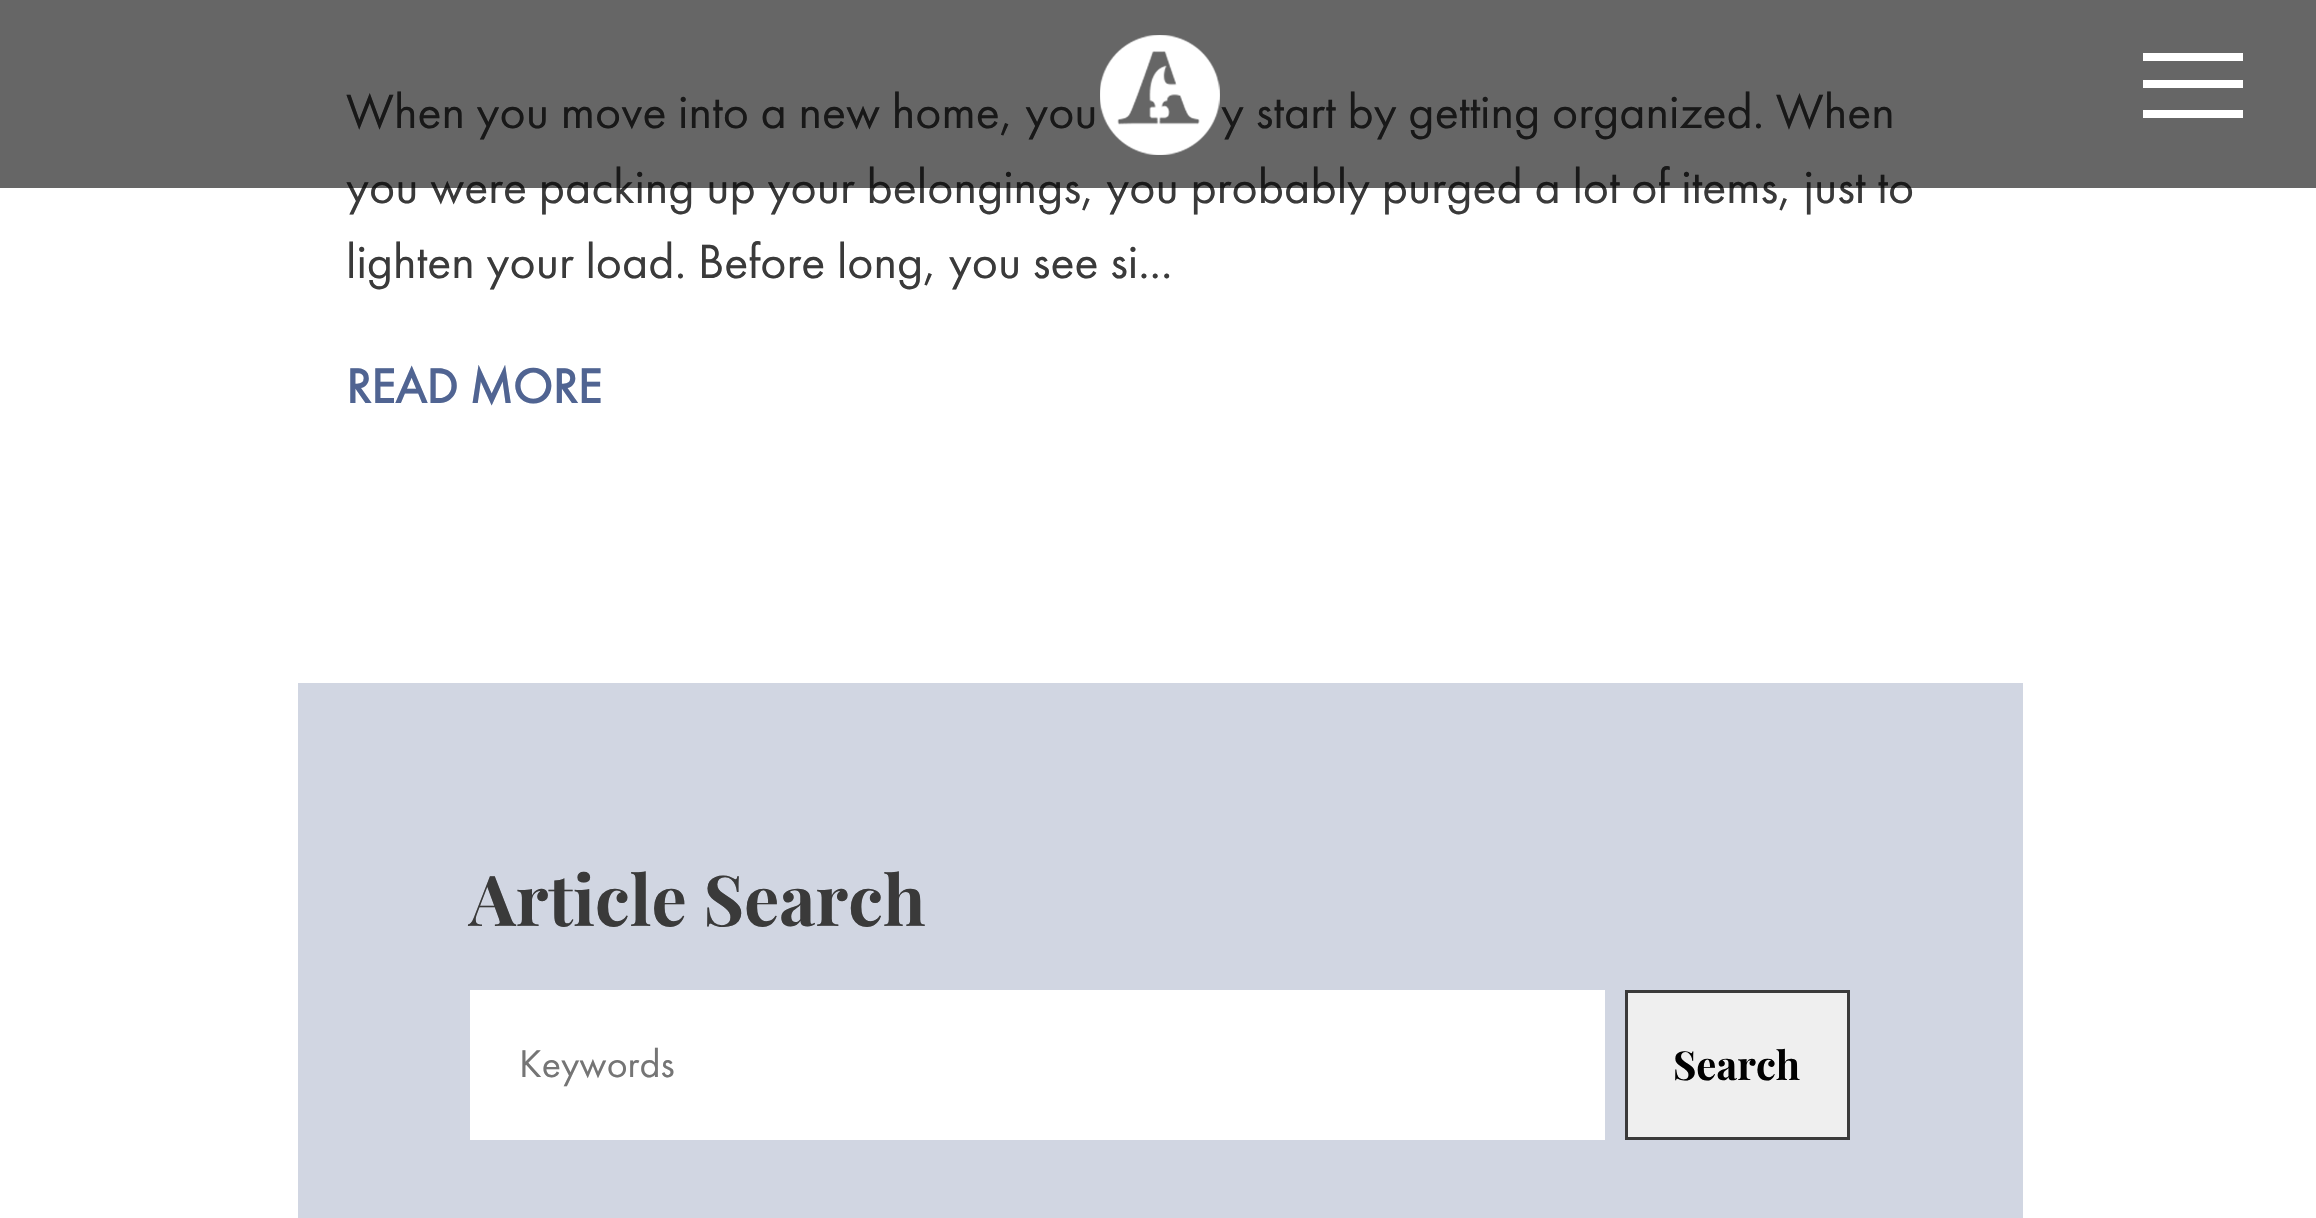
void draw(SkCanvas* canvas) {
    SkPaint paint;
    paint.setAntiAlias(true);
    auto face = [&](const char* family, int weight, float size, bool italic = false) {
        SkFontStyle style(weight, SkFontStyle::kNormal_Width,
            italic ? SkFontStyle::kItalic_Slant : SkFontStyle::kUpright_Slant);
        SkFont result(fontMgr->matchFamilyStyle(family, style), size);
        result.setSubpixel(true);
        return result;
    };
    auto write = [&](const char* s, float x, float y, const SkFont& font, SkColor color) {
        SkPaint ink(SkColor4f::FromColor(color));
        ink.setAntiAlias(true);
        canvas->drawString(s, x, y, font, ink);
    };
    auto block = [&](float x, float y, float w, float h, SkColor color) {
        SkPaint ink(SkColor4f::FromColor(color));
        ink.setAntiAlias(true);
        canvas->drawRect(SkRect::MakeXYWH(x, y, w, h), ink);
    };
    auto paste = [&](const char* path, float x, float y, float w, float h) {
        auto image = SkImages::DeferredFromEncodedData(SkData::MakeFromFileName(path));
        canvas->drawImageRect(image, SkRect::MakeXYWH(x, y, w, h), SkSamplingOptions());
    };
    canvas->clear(SK_ColorWHITE);
    auto kFont1 = face("Futura PT", 400, 50);
    write("When you move into a new home, you", 346, 128, kFont1, SkColorSetRGB(58, 58, 58));
    write("y start by getting organized. When", 1221, 128, kFont1, SkColorSetRGB(58, 58, 58));
    write("you were packing up your belongings, you probably purged a lot of items, just to", 346, 203, kFont1, SkColorSetRGB(58, 58, 58));
    block(0, 0, 2316, 188, SkColorSetARGB(153, 0, 0, 0));
    paste("pic1.png", 1100, 35, 120, 120);
    block(2143, 53, 100, 8, SK_ColorWHITE);
    block(2143, 80, 100, 8, SK_ColorWHITE);
    block(2143, 110, 100, 8, SK_ColorWHITE);
    write("lighten your load. Before long, you see si...", 346, 278, kFont1, SkColorSetRGB(58, 58, 58));
    auto kFont2 = face("Futura PT", 700, 50);
    write("READ MORE", 346, 403, kFont2, SkColorSetRGB(80, 100, 146));
    block(298, 683, 1725, 535, SkColorSetRGB(209, 214, 226));
    auto kFont3 = face("Playfair Display", 700, 70);
    write("Article Search", 469, 926, kFont3, SkColorSetRGB(58, 58, 58));
    block(470, 990, 1135, 150, SK_ColorWHITE);
    auto kFont4 = face("Futura PT", 400, 40);
    write("Keywords", 519, 1077, kFont4, SkColorSetRGB(117, 117, 117));
    paint.setColor(SkColorSetRGB(239, 239, 239));
    canvas->drawRect(SkRect::MakeXYWH(1626.5f, 991.5f, 222, 147), paint);
    paint.setStyle(SkPaint::kStroke_Style);
    paint.setStrokeWidth(3);
    paint.setColor(SkColorSetRGB(58, 58, 58));
    canvas->drawRect(SkRect::MakeXYWH(1626.5f, 991.5f, 222, 147), paint);
    auto kFont5 = face("Playfair Display", 700, 40);
    write("Search", 1673, 1080, kFont5, SK_ColorBLACK);
}
